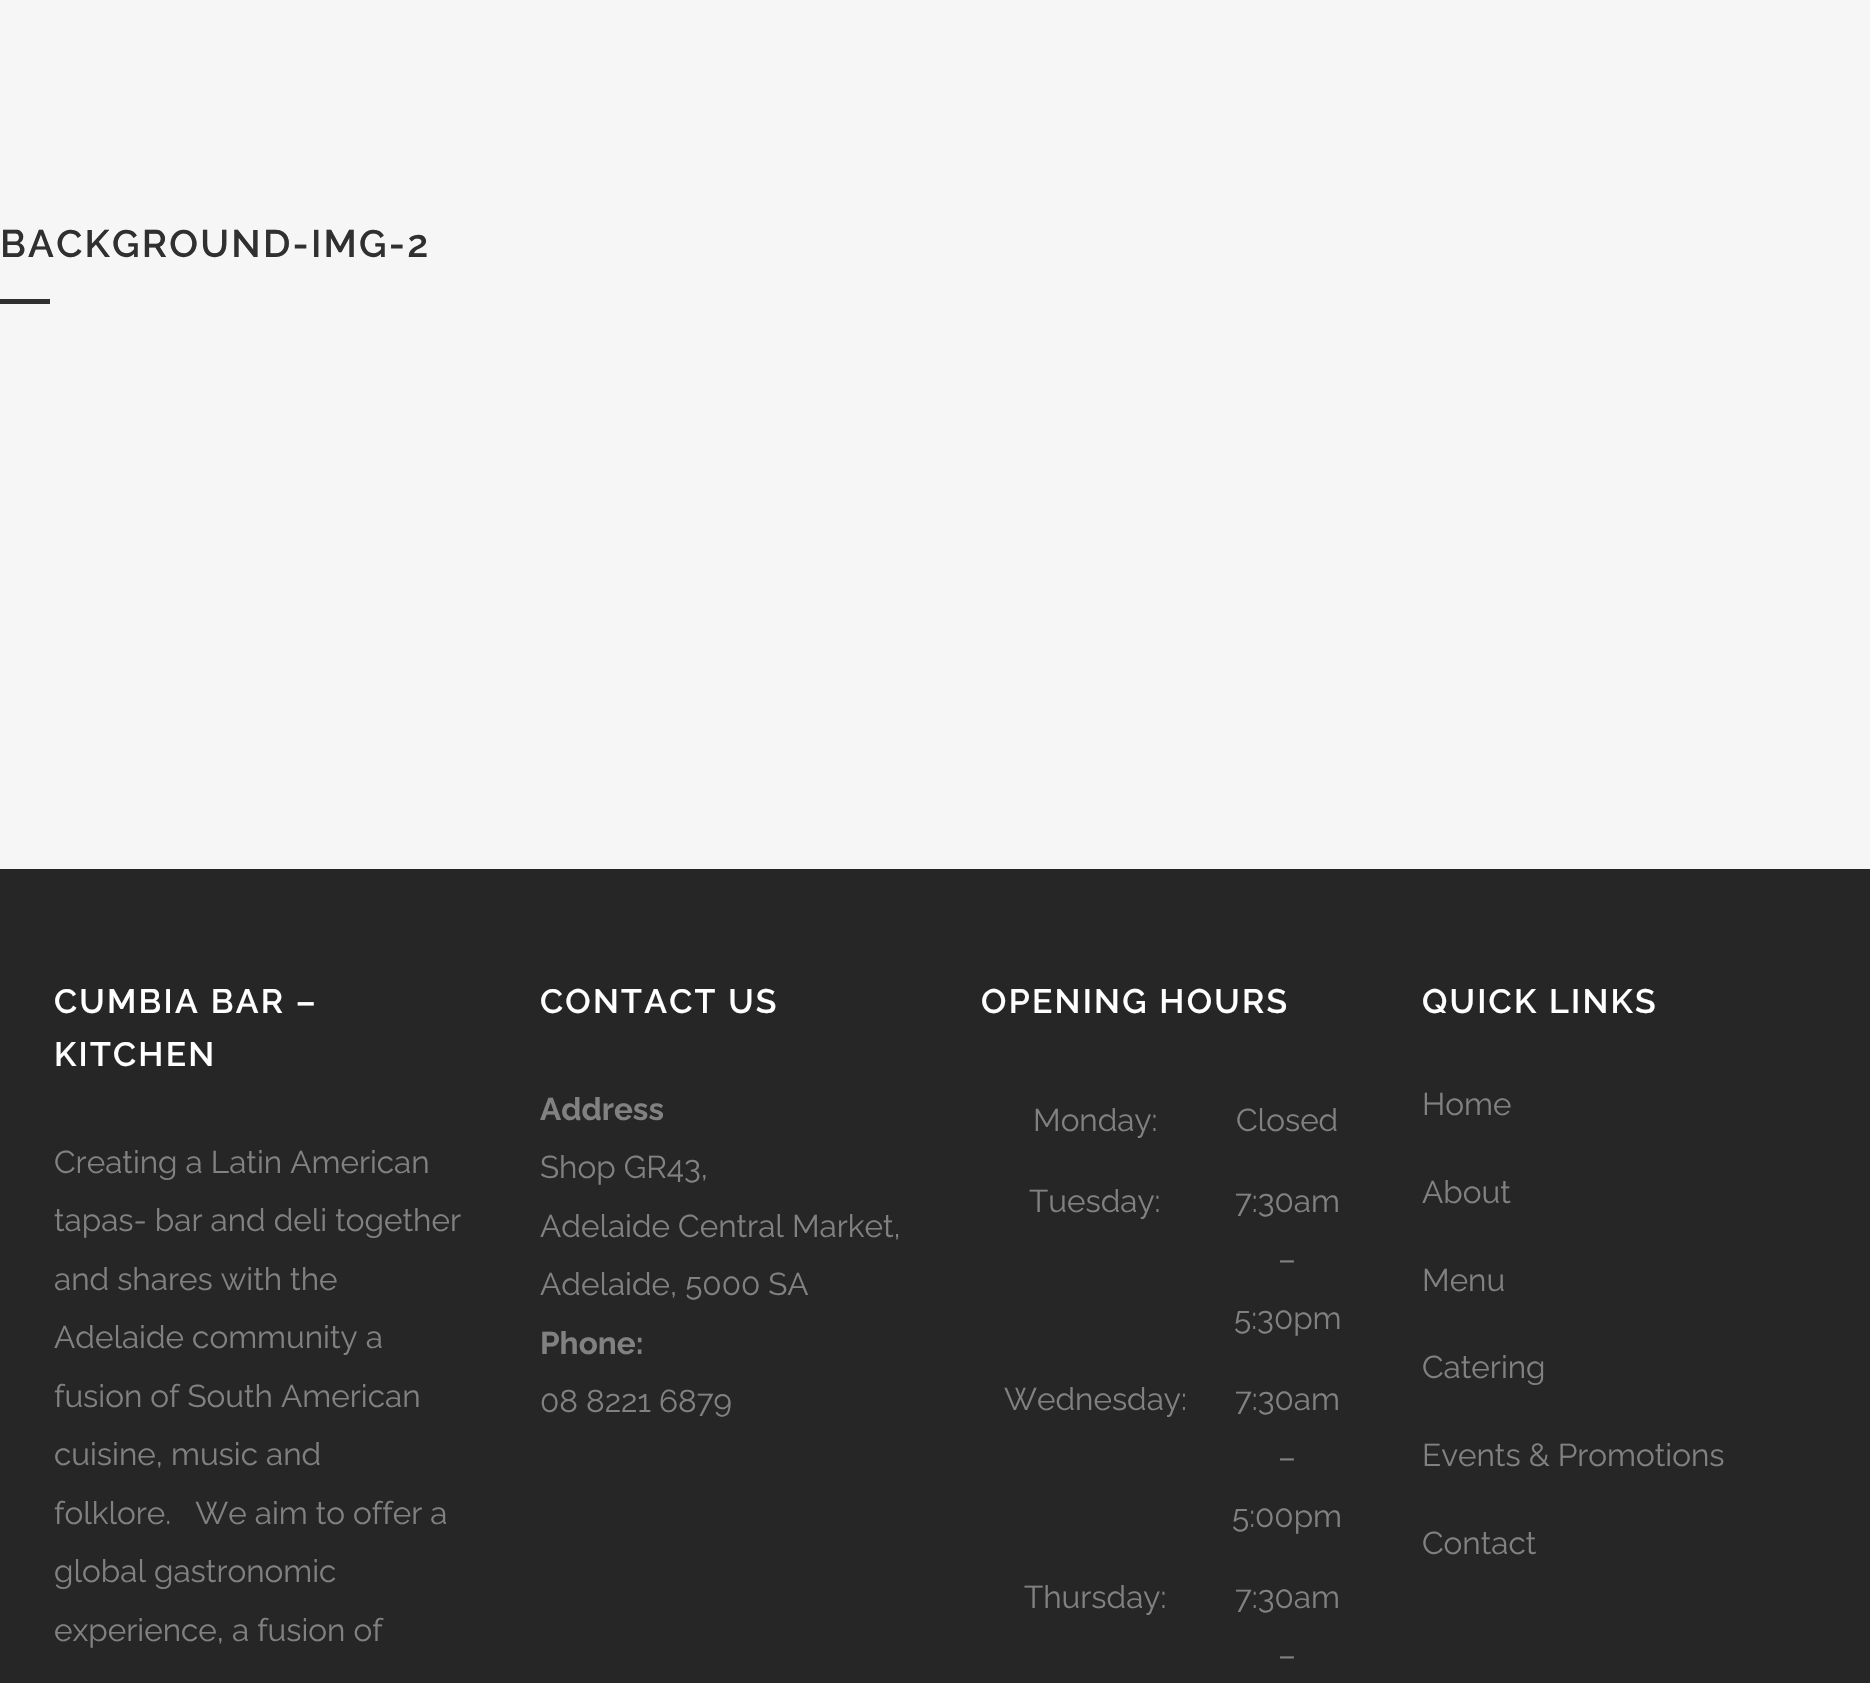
void draw(SkCanvas* canvas) {
    SkPaint paint;
    paint.setAntiAlias(true);
    auto face = [&](const char* family, int weight, float size, bool italic = false) {
        SkFontStyle style(weight, SkFontStyle::kNormal_Width,
            italic ? SkFontStyle::kItalic_Slant : SkFontStyle::kUpright_Slant);
        SkFont result(fontMgr->matchFamilyStyle(family, style), size);
        result.setSubpixel(true);
        return result;
    };
    auto write = [&](const char* s, float x, float y, const SkFont& font, SkColor color) {
        SkPaint ink(SkColor4f::FromColor(color));
        ink.setAntiAlias(true);
        canvas->drawString(s, x, y, font, ink);
    };
    auto writeSpaced = [&](const char* s, float x, float y, const SkFont& font, const SkPaint& ink, float letter, float word) {
        std::vector<SkGlyphID> glyphs(font.countText(s, strlen(s), SkTextEncoding::kUTF8));
        std::vector<float> xs(glyphs.size());
        font.textToGlyphs(s, strlen(s), SkTextEncoding::kUTF8, glyphs);
        font.getXPos(glyphs, xs, x);
        float extra = 0;
        for (size_t i = 0; i < glyphs.size(); i++) {
            xs[i] += extra;
            extra += letter + word * (glyphs[i] == font.unicharToGlyph(' '));
        }
        canvas->drawTextBlob(SkTextBlob::MakeFromPosHGlyphs(glyphs, xs, y, font), 0, 0, ink);
    };
    auto block = [&](float x, float y, float w, float h, SkColor color) {
        SkPaint ink(SkColor4f::FromColor(color));
        ink.setAntiAlias(true);
        canvas->drawRect(SkRect::MakeXYWH(x, y, w, h), ink);
    };
    canvas->clear(SkColorSetRGB(246, 246, 246));
    auto kFont1 = face("Raleway", 600, 38.25f);
    paint.setColor(SkColorSetRGB(48, 48, 48));
    writeSpaced("BACKGROUND-IMG-2", 0, 257, kFont1, paint, 2.25f, 0);
    block(0, 299, 50, 5, SkColorSetRGB(48, 48, 48));
    block(0, 869, 1870, 814, SkColorSetRGB(38, 38, 38));
    auto kFont2 = face("Raleway", 600, 33.75f);
    paint.setColor(SK_ColorWHITE);
    writeSpaced("CUMBIA BAR –", 54, 1013, kFont2, paint, 2.25f, 0);
    writeSpaced("KITCHEN", 54, 1066, kFont2, paint, 2.25f, 0);
    auto kFont3 = face("Raleway", 400, 31.5f);
    write("Creating a Latin American", 54, 1173, kFont3, SkColorSetRGB(129, 129, 129));
    write("tapas- bar and deli together", 54, 1231, kFont3, SkColorSetRGB(129, 129, 129));
    write("and shares with the", 54, 1290, kFont3, SkColorSetRGB(129, 129, 129));
    write("Adelaide community a", 54, 1348, kFont3, SkColorSetRGB(129, 129, 129));
    write("fusion of South American", 54, 1407, kFont3, SkColorSetRGB(129, 129, 129));
    write("cuisine, music and", 54, 1465, kFont3, SkColorSetRGB(129, 129, 129));
    write("folklore.   We aim to offer a", 54, 1524, kFont3, SkColorSetRGB(129, 129, 129));
    write("global gastronomic", 54, 1582, kFont3, SkColorSetRGB(129, 129, 129));
    write("experience, a fusion of", 54, 1641, kFont3, SkColorSetRGB(129, 129, 129));
    writeSpaced("CONTACT US", 540, 1013, kFont2, paint, 2.25f, 0);
    auto kFont4 = face("Raleway", 700, 31.5f);
    write("Address", 540, 1120, kFont4, SkColorSetRGB(129, 129, 129));
    write("Shop GR43,", 540, 1178, kFont3, SkColorSetRGB(129, 129, 129));
    write("Adelaide Central Market,", 540, 1237, kFont3, SkColorSetRGB(129, 129, 129));
    write("Adelaide, 5000 SA", 540, 1295, kFont3, SkColorSetRGB(129, 129, 129));
    write("Phone:", 540, 1354, kFont4, SkColorSetRGB(129, 129, 129));
    write("08 8221 6879", 540, 1412, kFont3, SkColorSetRGB(129, 129, 129));
    writeSpaced("OPENING HOURS", 981, 1013, kFont2, paint, 2.25f, 0);
    write("Monday:", 1033, 1131, kFont3, SkColorSetRGB(129, 129, 129));
    write("Closed", 1236, 1131, kFont3, SkColorSetRGB(129, 129, 129));
    write("Tuesday:", 1029, 1212, kFont3, SkColorSetRGB(129, 129, 129));
    write("7:30am", 1235, 1212, kFont3, SkColorSetRGB(129, 129, 129));
    write("–", 1278, 1270, kFont3, SkColorSetRGB(129, 129, 129));
    write("5:30pm", 1234, 1329, kFont3, SkColorSetRGB(129, 129, 129));
    write("Wednesday:", 1004, 1410, kFont3, SkColorSetRGB(129, 129, 129));
    write("7:30am", 1235, 1410, kFont3, SkColorSetRGB(129, 129, 129));
    write("–", 1278, 1468, kFont3, SkColorSetRGB(129, 129, 129));
    write("5:00pm", 1232, 1527, kFont3, SkColorSetRGB(129, 129, 129));
    write("Thursday:", 1024, 1608, kFont3, SkColorSetRGB(129, 129, 129));
    write("7:30am", 1235, 1608, kFont3, SkColorSetRGB(129, 129, 129));
    write("–", 1278, 1666, kFont3, SkColorSetRGB(129, 129, 129));
    writeSpaced("QUICK LINKS", 1422, 1013, kFont2, paint, 2.25f, 0);
    write("Home", 1422, 1115, kFont3, SkColorSetRGB(129, 129, 129));
    write("About", 1422, 1203, kFont3, SkColorSetRGB(129, 129, 129));
    write("Menu", 1422, 1291, kFont3, SkColorSetRGB(129, 129, 129));
    write("Catering", 1422, 1378, kFont3, SkColorSetRGB(129, 129, 129));
    write("Events & Promotions", 1422, 1466, kFont3, SkColorSetRGB(129, 129, 129));
    write("Contact", 1422, 1554, kFont3, SkColorSetRGB(129, 129, 129));
}
